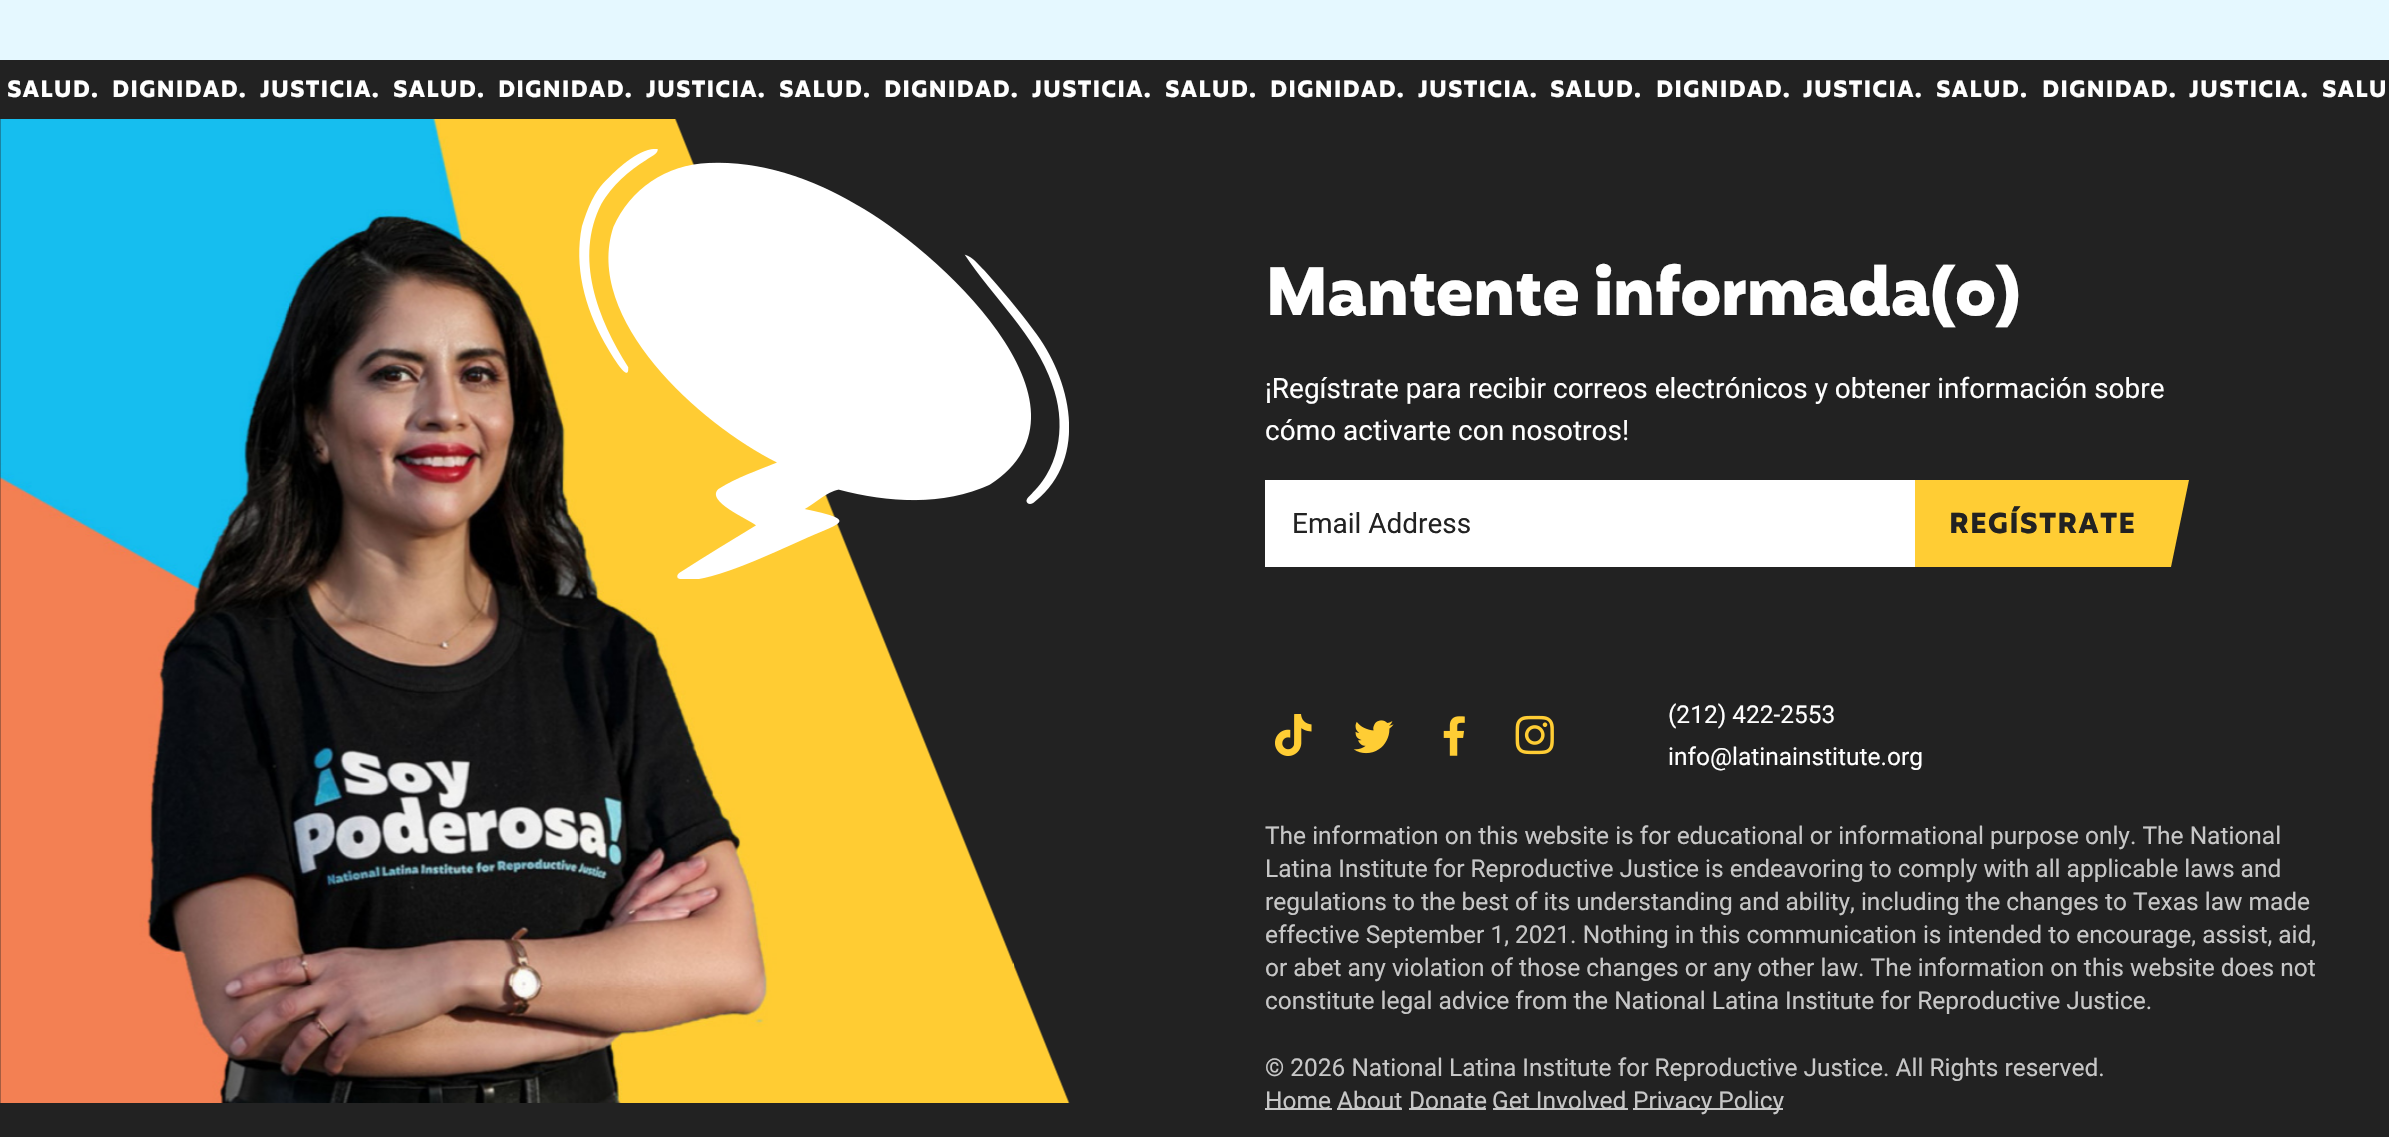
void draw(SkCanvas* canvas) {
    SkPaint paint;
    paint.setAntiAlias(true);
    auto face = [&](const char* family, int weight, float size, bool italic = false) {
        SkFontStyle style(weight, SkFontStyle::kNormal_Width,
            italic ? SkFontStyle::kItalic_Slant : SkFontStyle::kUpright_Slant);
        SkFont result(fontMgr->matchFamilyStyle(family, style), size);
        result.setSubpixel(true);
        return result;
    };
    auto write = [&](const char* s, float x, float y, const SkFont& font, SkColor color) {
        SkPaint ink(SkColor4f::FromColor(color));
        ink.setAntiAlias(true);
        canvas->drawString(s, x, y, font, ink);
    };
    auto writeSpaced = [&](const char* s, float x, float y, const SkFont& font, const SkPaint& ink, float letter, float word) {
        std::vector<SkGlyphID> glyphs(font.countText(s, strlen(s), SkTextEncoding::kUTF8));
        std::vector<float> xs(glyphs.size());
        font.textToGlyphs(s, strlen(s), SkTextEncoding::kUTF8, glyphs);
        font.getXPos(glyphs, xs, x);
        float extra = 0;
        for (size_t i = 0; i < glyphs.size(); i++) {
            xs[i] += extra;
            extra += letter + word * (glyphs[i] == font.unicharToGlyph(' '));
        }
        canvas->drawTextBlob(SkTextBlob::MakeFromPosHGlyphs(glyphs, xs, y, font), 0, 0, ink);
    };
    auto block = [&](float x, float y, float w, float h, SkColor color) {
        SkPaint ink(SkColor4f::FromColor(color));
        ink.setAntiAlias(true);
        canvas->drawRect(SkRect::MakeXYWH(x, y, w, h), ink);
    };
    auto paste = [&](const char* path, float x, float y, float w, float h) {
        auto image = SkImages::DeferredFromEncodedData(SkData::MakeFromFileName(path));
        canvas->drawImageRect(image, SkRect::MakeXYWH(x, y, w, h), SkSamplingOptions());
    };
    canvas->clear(SkColorSetRGB(34, 34, 34));
    block(0, 0, 2389, 60, SkColorSetRGB(229, 248, 255));
    auto kFont1 = face("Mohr", 700, 22.75f);
    paint.setColor(SK_ColorWHITE);
    writeSpaced("SALUD.", 7, 97, kFont1, paint, 1, 0);
    writeSpaced("DIGNIDAD.", 112, 97, kFont1, paint, 1, 0);
    writeSpaced("JUSTICIA.", 260, 97, kFont1, paint, 1, 0);
    writeSpaced("SALUD.", 393, 97, kFont1, paint, 1, 0);
    writeSpaced("DIGNIDAD.", 498, 97, kFont1, paint, 1, 0);
    writeSpaced("JUSTICIA.", 646, 97, kFont1, paint, 1, 0);
    writeSpaced("SALUD.", 779, 97, kFont1, paint, 1, 0);
    writeSpaced("DIGNIDAD.", 884, 97, kFont1, paint, 1, 0);
    writeSpaced("JUSTICIA.", 1032, 97, kFont1, paint, 1, 0);
    writeSpaced("SALUD.", 1165, 97, kFont1, paint, 1, 0);
    writeSpaced("DIGNIDAD.", 1270, 97, kFont1, paint, 1, 0);
    writeSpaced("JUSTICIA.", 1418, 97, kFont1, paint, 1, 0);
    writeSpaced("SALUD.", 1550, 97, kFont1, paint, 1, 0);
    writeSpaced("DIGNIDAD.", 1656, 97, kFont1, paint, 1, 0);
    writeSpaced("JUSTICIA.", 1803, 97, kFont1, paint, 1, 0);
    writeSpaced("SALUD.", 1936, 97, kFont1, paint, 1, 0);
    writeSpaced("DIGNIDAD.", 2042, 97, kFont1, paint, 1, 0);
    writeSpaced("JUSTICIA.", 2189, 97, kFont1, paint, 1, 0);
    writeSpaced("SALU", 2322, 97, kFont1, paint, 1, 0);
    paste("pic1.png", 0, 119, 1070, 984);
    paste("pic2.png", 579, 149, 490, 430);
    auto kFont2 = face("Mohr", 700, 66.5f);
    writeSpaced("Mantente informada(o)", 1265, 315, kFont2, paint, -1.3f, 0);
    auto kFont3 = face("Roboto", 400, 28);
    write("¡Regístrate para recibir correos electrónicos y obtener información sobre", 1265, 398, kFont3, SK_ColorWHITE);
    write("cómo activarte con nosotros!", 1265, 440, kFont3, SK_ColorWHITE);
    block(1265, 480, 650, 87, SK_ColorWHITE);
    write("Email Address", 1292, 533, kFont3, SkColorSetRGB(34, 34, 34));
    paint.setColor(SkColorSetRGB(255, 205, 52));
    canvas->drawPath(SkPathBuilder().moveTo(2171, 567).lineTo(1915, 567).lineTo(1915, 480).lineTo(2189, 480).close().detach(), paint);
    auto kFont4 = face("Mohr", 700, 28);
    paint.setColor(SkColorSetRGB(34, 34, 34));
    writeSpaced("REGÍSTRATE", 1949, 533, kFont4, paint, 1.1f, 0);
    paste("pic3.png", 1275, 714, 37, 42);
    paste("pic4.png", 1353, 720, 41, 34);
    paste("pic5.png", 1443, 716, 22, 40);
    paste("pic6.png", 1515, 715, 39, 40);
    auto kFont5 = face("Roboto", 400, 24.5f);
    write("(212) 422-2553", 1668, 723, kFont5, SK_ColorWHITE);
    write("info@latinainstitute.org", 1668, 765, kFont5, SK_ColorWHITE);
    write("The information on this website is for educational or informational purpose only. The National", 1265, 844, kFont5, SkColorSetRGB(199, 199, 199));
    write("Latina Institute for Reproductive Justice is endeavoring to comply with all applicable laws and", 1265, 877, kFont5, SkColorSetRGB(199, 199, 199));
    write("regulations to the best of its understanding and ability, including the changes to Texas law made", 1265, 910, kFont5, SkColorSetRGB(199, 199, 199));
    write("effective September 1, 2021. Nothing in this communication is intended to encourage, assist, aid,", 1265, 943, kFont5, SkColorSetRGB(199, 199, 199));
    write("or abet any violation of those changes or any other law. The information on this website does not", 1265, 976, kFont5, SkColorSetRGB(199, 199, 199));
    write("constitute legal advice from the National Latina Institute for Reproductive Justice.", 1265, 1009, kFont5, SkColorSetRGB(199, 199, 199));
    write("© 2026 National Latina Institute for Reproductive Justice. All Rights reserved.", 1265, 1076, kFont5, SkColorSetRGB(199, 199, 199));
    block(1265, 1108, 67, 2, SkColorSetRGB(199, 199, 199));
    write("Home", 1265, 1109, kFont5, SkColorSetRGB(199, 199, 199));
    block(1337, 1108, 65, 2, SkColorSetRGB(199, 199, 199));
    write("About", 1337, 1109, kFont5, SkColorSetRGB(199, 199, 199));
    block(1409, 1108, 77, 2, SkColorSetRGB(199, 199, 199));
    write("Donate", 1409, 1109, kFont5, SkColorSetRGB(199, 199, 199));
    block(1493, 1108, 135, 2, SkColorSetRGB(199, 199, 199));
    write("Get Involved", 1492, 1109, kFont5, SkColorSetRGB(199, 199, 199));
    block(1633, 1108, 150, 2, SkColorSetRGB(199, 199, 199));
    write("Privacy Policy", 1633, 1109, kFont5, SkColorSetRGB(199, 199, 199));
}
